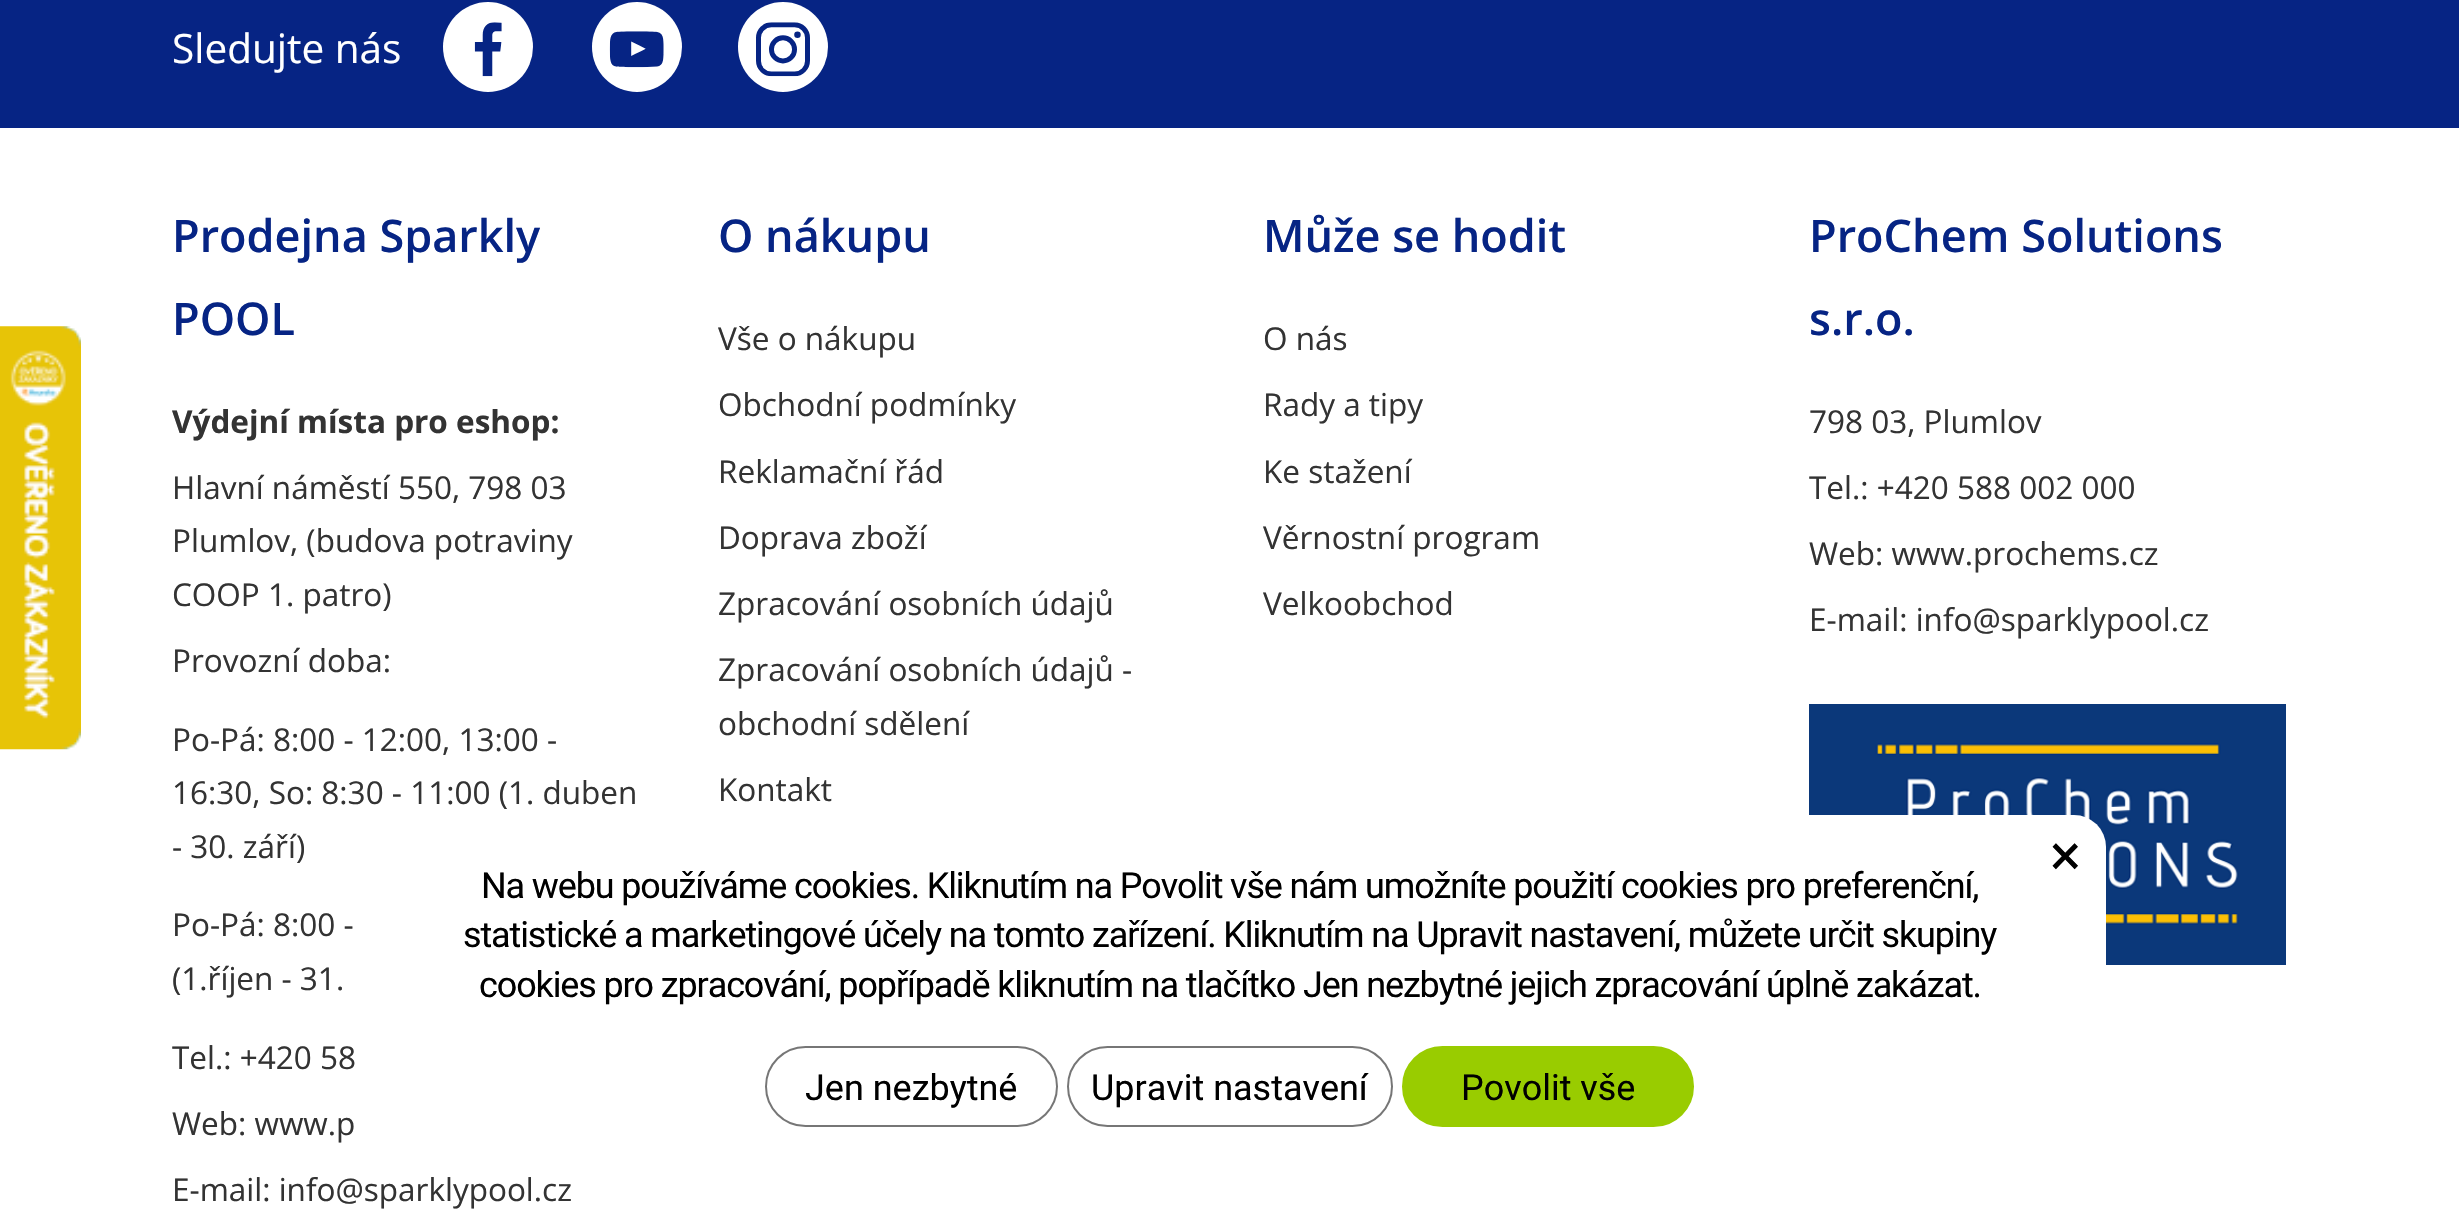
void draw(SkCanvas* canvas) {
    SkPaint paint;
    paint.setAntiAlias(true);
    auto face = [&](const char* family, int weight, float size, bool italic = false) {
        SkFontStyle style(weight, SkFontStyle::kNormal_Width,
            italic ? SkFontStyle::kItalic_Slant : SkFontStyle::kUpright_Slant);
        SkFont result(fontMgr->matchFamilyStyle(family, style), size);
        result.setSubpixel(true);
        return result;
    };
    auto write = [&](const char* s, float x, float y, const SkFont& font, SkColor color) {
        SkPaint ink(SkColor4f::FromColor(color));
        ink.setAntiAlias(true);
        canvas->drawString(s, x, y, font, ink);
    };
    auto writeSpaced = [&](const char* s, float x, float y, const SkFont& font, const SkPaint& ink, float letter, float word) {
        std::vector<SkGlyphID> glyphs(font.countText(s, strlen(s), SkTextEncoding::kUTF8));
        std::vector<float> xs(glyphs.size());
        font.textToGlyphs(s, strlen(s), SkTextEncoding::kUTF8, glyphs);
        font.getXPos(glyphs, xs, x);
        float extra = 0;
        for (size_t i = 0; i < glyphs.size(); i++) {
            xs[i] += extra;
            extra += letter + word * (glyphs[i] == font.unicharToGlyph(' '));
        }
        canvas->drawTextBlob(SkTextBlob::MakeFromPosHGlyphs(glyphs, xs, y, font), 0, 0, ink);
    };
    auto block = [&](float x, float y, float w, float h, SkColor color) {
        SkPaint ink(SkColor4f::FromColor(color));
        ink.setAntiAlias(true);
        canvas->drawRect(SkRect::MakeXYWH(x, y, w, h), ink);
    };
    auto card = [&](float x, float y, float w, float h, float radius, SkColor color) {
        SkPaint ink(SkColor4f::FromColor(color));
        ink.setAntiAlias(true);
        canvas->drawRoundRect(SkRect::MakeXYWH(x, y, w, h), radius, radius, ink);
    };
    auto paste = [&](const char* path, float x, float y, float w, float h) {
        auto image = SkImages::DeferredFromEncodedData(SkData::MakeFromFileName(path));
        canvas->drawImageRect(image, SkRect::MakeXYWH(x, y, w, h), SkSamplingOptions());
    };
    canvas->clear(SK_ColorWHITE);
    paste("pic1.png", 0, 326, 81, 424);
    block(0, 0, 2459, 128, SkColorSetRGB(6, 36, 132));
    auto kFont1 = face("Open Sans", 400, 40.5f);
    write("Sledujte nás", 172, 63, kFont1, SK_ColorWHITE);
    paint.setColor(SK_ColorWHITE);
    canvas->drawCircle(488, 47, 45, paint);
    paste("pic2.png", 474, 22, 28, 55);
    canvas->drawCircle(637, 47, 45, paint);
    paste("pic3.png", 609, 31, 55, 37);
    canvas->drawCircle(783, 47, 45, paint);
    paste("pic4.png", 756, 22, 54, 55);
    auto kFont2 = face("Open Sans", 600, 45);
    write("Prodejna Sparkly", 172, 252, kFont2, SkColorSetRGB(6, 36, 132));
    write("POOL", 172, 335, kFont2, SkColorSetRGB(6, 36, 132));
    auto kFont3 = face("Open Sans", 700, 31.5f);
    write("Výdejní místa pro eshop:", 172, 433, kFont3, SkColorSetRGB(51, 51, 51));
    auto kFont4 = face("Open Sans", 400, 31.5f);
    write("Hlavní náměstí 550, 798 03", 172, 499, kFont4, SkColorSetRGB(51, 51, 51));
    write("Plumlov, (budova potraviny", 172, 552, kFont4, SkColorSetRGB(51, 51, 51));
    write("COOP 1. patro)", 172, 606, kFont4, SkColorSetRGB(51, 51, 51));
    write("Provozní doba:", 172, 672, kFont4, SkColorSetRGB(51, 51, 51));
    write("Po-Pá: 8:00 - 12:00, 13:00 -", 172, 751, kFont4, SkColorSetRGB(51, 51, 51));
    write("16:30, So: 8:30 - 11:00 (1. duben", 172, 804, kFont4, SkColorSetRGB(51, 51, 51));
    write("- 30. září)", 172, 858, kFont4, SkColorSetRGB(51, 51, 51));
    write("Po-Pá: 8:00 -", 172, 936, kFont4, SkColorSetRGB(51, 51, 51));
    write("(1.říjen - 31.", 172, 990, kFont4, SkColorSetRGB(51, 51, 51));
    write("Tel.: +420 58", 172, 1069, kFont4, SkColorSetRGB(51, 51, 51));
    write("Web: www.p", 172, 1135, kFont4, SkColorSetRGB(51, 51, 51));
    write("E-mail: info@sparklypool.cz", 172, 1201, kFont4, SkColorSetRGB(51, 51, 51));
    write("O nákupu", 718, 252, kFont2, SkColorSetRGB(6, 36, 132));
    write("Vše o nákupu", 718, 350, kFont4, SkColorSetRGB(51, 51, 51));
    write("Obchodní podmínky", 718, 416, kFont4, SkColorSetRGB(51, 51, 51));
    write("Reklamační řád", 718, 483, kFont4, SkColorSetRGB(51, 51, 51));
    write("Doprava zboží", 718, 549, kFont4, SkColorSetRGB(51, 51, 51));
    write("Zpracování osobních údajů", 718, 615, kFont4, SkColorSetRGB(51, 51, 51));
    write("Zpracování osobních údajů -", 718, 681, kFont4, SkColorSetRGB(51, 51, 51));
    write("obchodní sdělení", 718, 735, kFont4, SkColorSetRGB(51, 51, 51));
    write("Kontakt", 718, 801, kFont4, SkColorSetRGB(51, 51, 51));
    write("Může se hodit", 1263, 252, kFont2, SkColorSetRGB(6, 36, 132));
    write("O nás", 1263, 350, kFont4, SkColorSetRGB(51, 51, 51));
    write("Rady a tipy", 1263, 416, kFont4, SkColorSetRGB(51, 51, 51));
    write("Ke stažení", 1263, 483, kFont4, SkColorSetRGB(51, 51, 51));
    write("Věrnostní program", 1263, 549, kFont4, SkColorSetRGB(51, 51, 51));
    write("Velkoobchod", 1263, 615, kFont4, SkColorSetRGB(51, 51, 51));
    write("ProChem Solutions", 1809, 252, kFont2, SkColorSetRGB(6, 36, 132));
    write("s.r.o.", 1809, 335, kFont2, SkColorSetRGB(6, 36, 132));
    write("798 03, Plumlov", 1809, 433, kFont4, SkColorSetRGB(51, 51, 51));
    write("Tel.: +420 588 002 000", 1809, 499, kFont4, SkColorSetRGB(51, 51, 51));
    write("Web: www.prochems.cz", 1809, 565, kFont4, SkColorSetRGB(51, 51, 51));
    write("E-mail: info@sparklypool.cz", 1809, 631, kFont4, SkColorSetRGB(51, 51, 51));
    paste("pic5.png", 1809, 704, 477, 261);
    card(356, 815, 1750, 362, 32, SK_ColorWHITE);
    auto kFont5 = face("Roboto", 400, 58);
    write("×", 2050, 875, kFont5, SK_ColorBLACK);
    auto kFont6 = face("Roboto", 400, 36);
    paint.setColor(SK_ColorBLACK);
    writeSpaced("Na webu používáme cookies. Kliknutím na Povolit vše nám umožníte použití cookies pro preferenční,", 481, 898, kFont6, paint, -1.12f, 0);
    writeSpaced("statistické a marketingové účely na tomto zařízení. Kliknutím na Upravit nastavení, můžete určit skupiny", 463, 947, kFont6, paint, -1.12f, 0);
    writeSpaced("cookies pro zpracování, popřípadě kliknutím na tlačítko Jen nezbytné jejich zpracování úplně zakázat.", 479, 997, kFont6, paint, -1.12f, 0);
    paint.setStyle(SkPaint::kStroke_Style);
    paint.setStrokeWidth(2);
    paint.setColor(SkColorSetRGB(118, 118, 118));
    canvas->drawRoundRect(SkRect::MakeXYWH(766, 1047, 291, 79), 39.5f, 39.5f, paint);
    write("Jen nezbytné", 805, 1100, kFont6, SK_ColorBLACK);
    canvas->drawRoundRect(SkRect::MakeXYWH(1068, 1047, 324, 79), 39.5f, 39.5f, paint);
    write("Upravit nastavení", 1091, 1100, kFont6, SK_ColorBLACK);
    paint.setStyle(SkPaint::kFill_Style);
    paint.setColor(SkColorSetRGB(153, 204, 0));
    canvas->drawRoundRect(SkRect::MakeXYWH(1403, 1047, 290, 79), 39.5f, 39.5f, paint);
    paint.setStyle(SkPaint::kStroke_Style);
    canvas->drawRoundRect(SkRect::MakeXYWH(1403, 1047, 290, 79), 39.5f, 39.5f, paint);
    write("Povolit vše", 1461, 1100, kFont6, SK_ColorBLACK);
}
